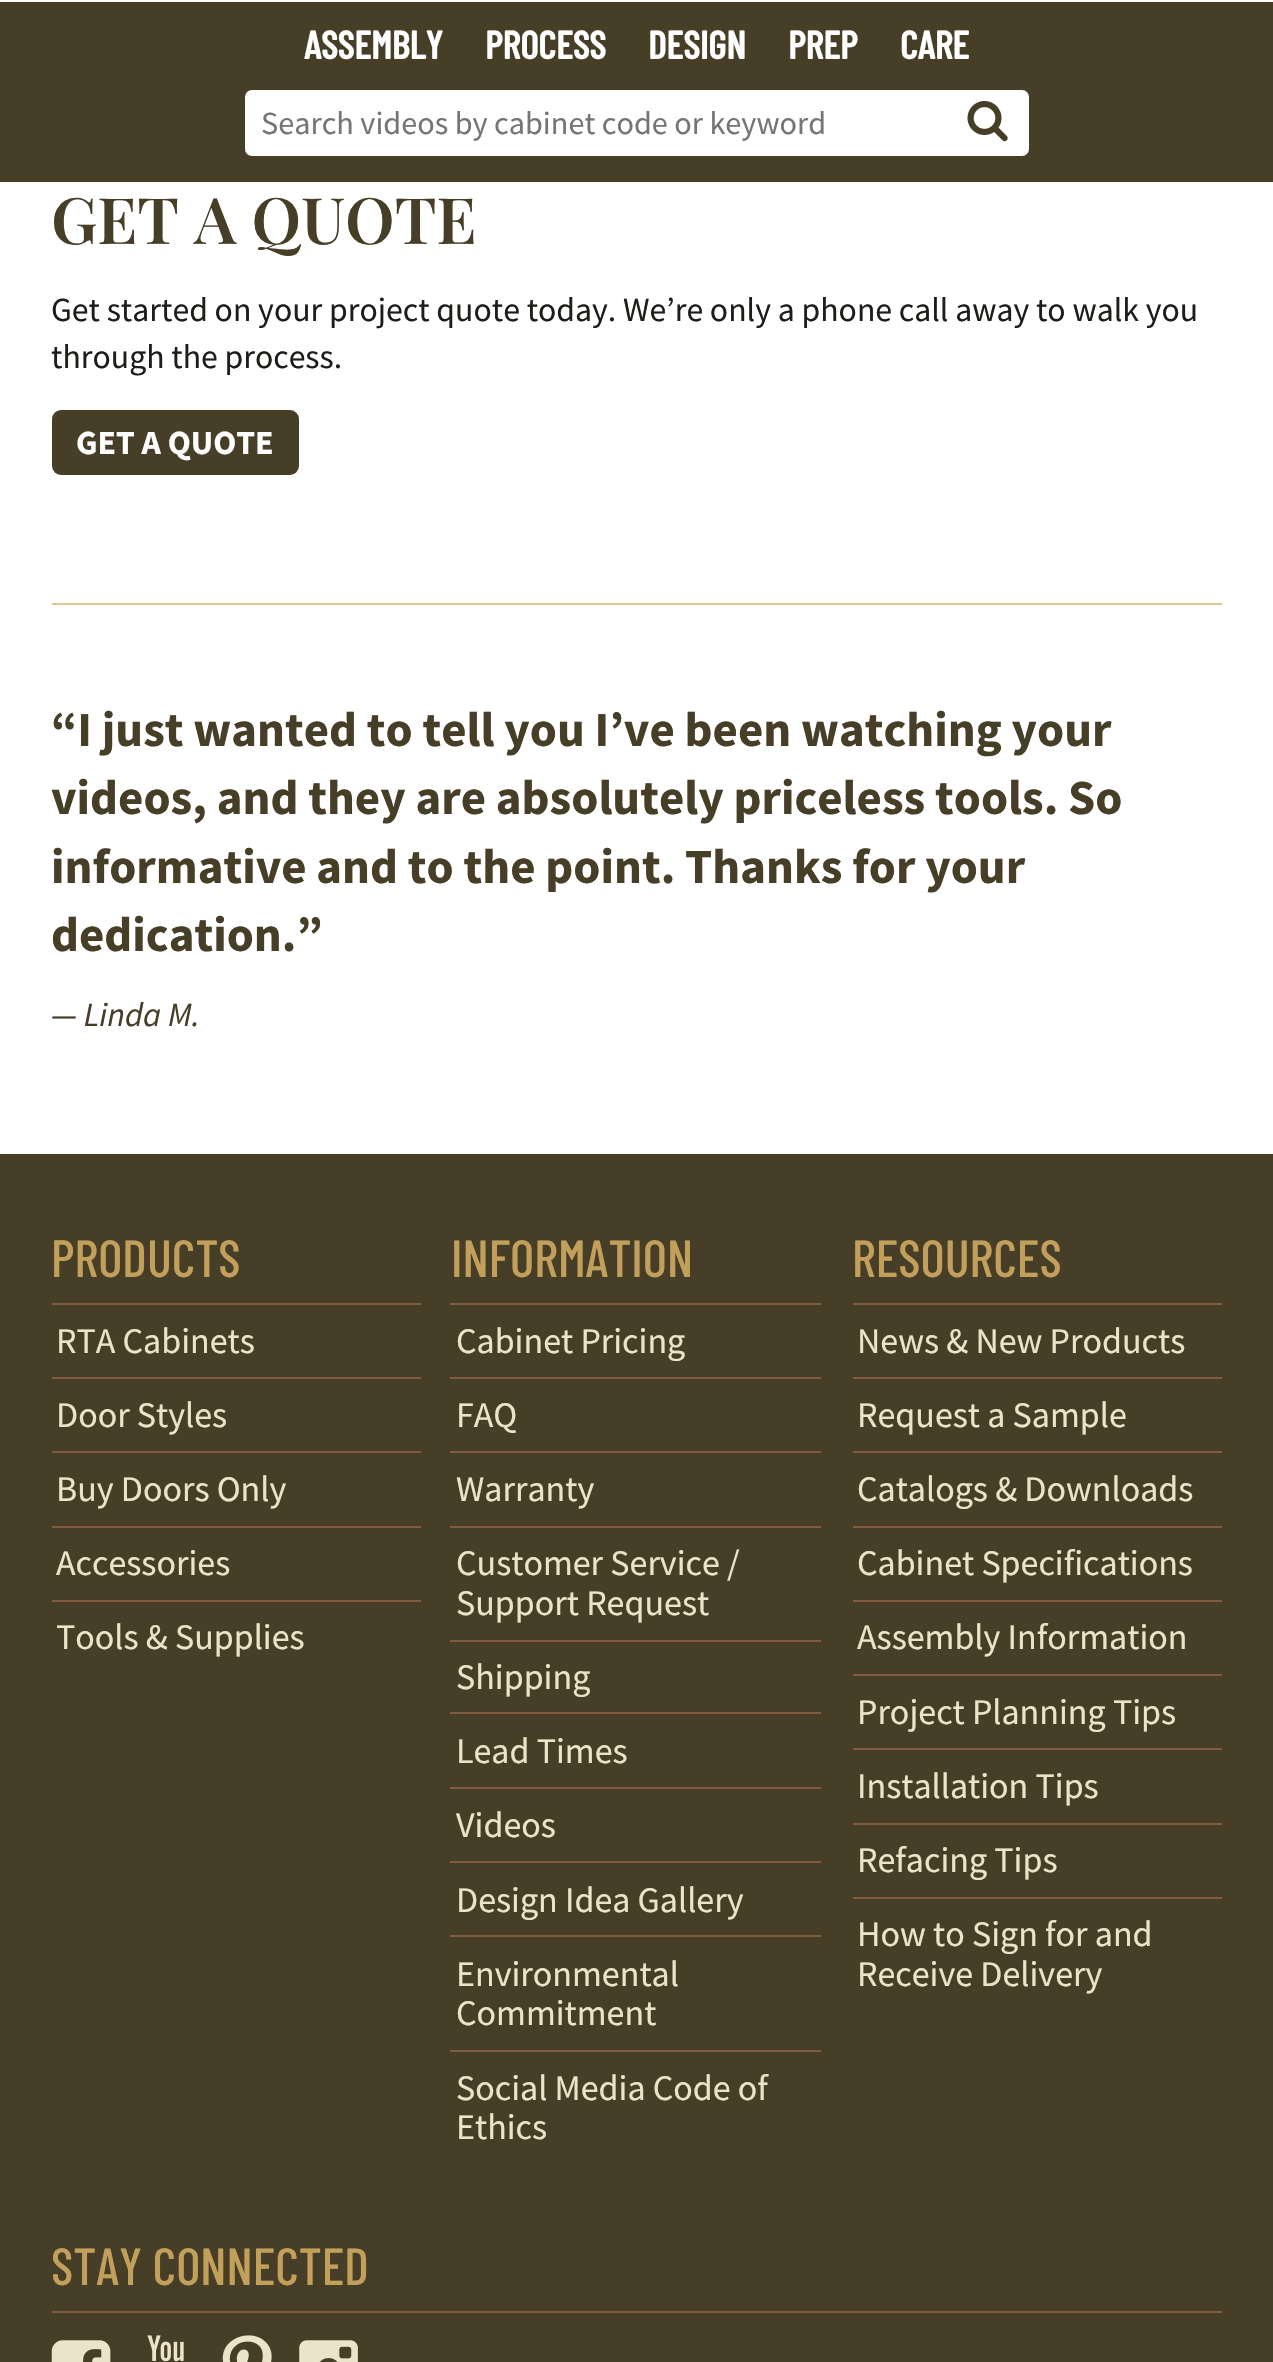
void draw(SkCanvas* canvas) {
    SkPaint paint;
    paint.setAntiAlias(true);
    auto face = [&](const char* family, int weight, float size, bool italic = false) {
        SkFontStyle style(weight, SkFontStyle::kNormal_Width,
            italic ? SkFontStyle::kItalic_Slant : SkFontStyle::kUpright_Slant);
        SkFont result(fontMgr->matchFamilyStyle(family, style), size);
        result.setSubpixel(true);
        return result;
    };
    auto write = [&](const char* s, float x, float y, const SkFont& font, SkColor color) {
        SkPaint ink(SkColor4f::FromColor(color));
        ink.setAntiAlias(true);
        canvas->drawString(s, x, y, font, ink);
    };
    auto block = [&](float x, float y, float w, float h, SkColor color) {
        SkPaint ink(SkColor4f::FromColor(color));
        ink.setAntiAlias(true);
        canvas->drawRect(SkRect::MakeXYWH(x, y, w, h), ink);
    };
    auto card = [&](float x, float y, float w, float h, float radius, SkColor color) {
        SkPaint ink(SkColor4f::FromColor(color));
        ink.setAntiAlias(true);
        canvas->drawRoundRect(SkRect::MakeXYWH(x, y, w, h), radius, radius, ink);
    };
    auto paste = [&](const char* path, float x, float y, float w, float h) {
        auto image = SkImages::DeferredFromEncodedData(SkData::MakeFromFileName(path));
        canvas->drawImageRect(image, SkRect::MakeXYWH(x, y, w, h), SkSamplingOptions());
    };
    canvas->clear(SK_ColorWHITE);
    block(0, 2, 1273, 180, SkColorSetRGB(71, 62, 40));
    auto kFont1 = face("Barlow Condensed", 700, 39);
    write("ASSEMBLY", 304, 59, kFont1, SK_ColorWHITE);
    write("PROCESS", 485, 59, kFont1, SK_ColorWHITE);
    write("DESIGN", 648, 59, kFont1, SK_ColorWHITE);
    write("PREP", 788, 59, kFont1, SK_ColorWHITE);
    write("CARE", 900, 59, kFont1, SK_ColorWHITE);
    paint.setColor(SK_ColorWHITE);
    canvas->drawRoundRect(SkRect::MakeXYWH(244, 89, 786, 68), 8, 8, paint);
    paint.setStyle(SkPaint::kStroke_Style);
    paint.setStrokeWidth(2);
    paint.setColor(SkColorSetRGB(71, 62, 40));
    canvas->drawRoundRect(SkRect::MakeXYWH(244, 89, 786, 68), 8, 8, paint);
    auto kFont2 = face("Source Sans Pro", 400, 32.25f);
    write("Search videos by cabinet code or keyword", 261, 134, kFont2, SkColorSetRGB(117, 117, 117));
    paste("pic1.png", 967, 101, 41, 41);
    auto kFont3 = face("Playfair Display", 600, 64);
    write("GET A QUOTE", 51, 244, kFont3, SkColorSetRGB(71, 62, 40));
    auto kFont4 = face("Source Sans Pro", 400, 33.75f);
    write("Get started on your project quote today. We’re only a phone call away to walk you", 51, 321, kFont4, SkColorSetRGB(31, 29, 26));
    write("through the process.", 51, 368, kFont4, SkColorSetRGB(31, 29, 26));
    card(52, 410, 247, 65, 9, SkColorSetRGB(71, 62, 40));
    auto kFont5 = face("Source Sans Pro", 700, 33.75f);
    write("GET A QUOTE", 76, 454, kFont5, SK_ColorWHITE);
    block(52, 603, 1170, 2, SkColorSetRGB(221, 199, 149));
    auto kFont6 = face("Source Sans Pro", 700, 48.9f);
    write("“I just wanted to tell you I’ve been watching your", 51, 746, kFont6, SkColorSetRGB(71, 62, 40));
    write("videos, and they are absolutely priceless tools. So", 51, 814, kFont6, SkColorSetRGB(71, 62, 40));
    write("informative and to the point. Thanks for your", 51, 883, kFont6, SkColorSetRGB(71, 62, 40));
    write("dedication.”", 51, 951, kFont6, SkColorSetRGB(71, 62, 40));
    auto kFont7 = face("Source Sans Pro", 400, 33.75f, true);
    write("— Linda M.", 51, 1026, kFont7, SkColorSetRGB(71, 62, 40));
    block(0, 1154, 1273, 1208, SkColorSetRGB(71, 62, 40));
    auto kFont8 = face("Barlow Condensed", 500, 52.25f);
    write("PRODUCTS", 51, 1277, kFont8, SkColorSetRGB(194, 160, 91));
    block(52, 1303, 369, 2, SkColorSetRGB(128, 91, 66));
    auto kFont9 = face("Source Sans Pro", 400, 36);
    write("RTA Cabinets", 56, 1353, kFont9, SkColorSetRGB(236, 227, 203));
    block(52, 1377, 369, 2, SkColorSetRGB(128, 91, 66));
    write("Door Styles", 56, 1427, kFont9, SkColorSetRGB(236, 227, 203));
    block(52, 1451, 369, 2, SkColorSetRGB(128, 91, 66));
    write("Buy Doors Only", 56, 1501, kFont9, SkColorSetRGB(236, 227, 203));
    block(52, 1526, 369, 2, SkColorSetRGB(128, 91, 66));
    write("Accessories", 56, 1575, kFont9, SkColorSetRGB(236, 227, 203));
    block(52, 1600, 369, 2, SkColorSetRGB(128, 91, 66));
    write("Tools & Supplies", 56, 1649, kFont9, SkColorSetRGB(236, 227, 203));
    write("INFORMATION", 451, 1277, kFont8, SkColorSetRGB(194, 160, 91));
    block(450, 1303, 371, 2, SkColorSetRGB(128, 91, 66));
    write("Cabinet Pricing", 456, 1353, kFont9, SkColorSetRGB(236, 227, 203));
    block(450, 1377, 371, 2, SkColorSetRGB(128, 91, 66));
    write("FAQ", 456, 1427, kFont9, SkColorSetRGB(236, 227, 203));
    block(450, 1451, 371, 2, SkColorSetRGB(128, 91, 66));
    write("Warranty", 456, 1501, kFont9, SkColorSetRGB(236, 227, 203));
    block(450, 1526, 371, 2, SkColorSetRGB(128, 91, 66));
    write("Customer Service /", 456, 1575, kFont9, SkColorSetRGB(236, 227, 203));
    write("Support Request", 456, 1615, kFont9, SkColorSetRGB(236, 227, 203));
    block(450, 1640, 371, 2, SkColorSetRGB(128, 91, 66));
    write("Shipping", 456, 1689, kFont9, SkColorSetRGB(236, 227, 203));
    block(450, 1712, 371, 2, SkColorSetRGB(128, 91, 66));
    write("Lead Times", 456, 1763, kFont9, SkColorSetRGB(236, 227, 203));
    block(450, 1787, 371, 2, SkColorSetRGB(128, 91, 66));
    write("Videos", 456, 1837, kFont9, SkColorSetRGB(236, 227, 203));
    block(450, 1861, 371, 2, SkColorSetRGB(128, 91, 66));
    write("Design Idea Gallery", 456, 1912, kFont9, SkColorSetRGB(236, 227, 203));
    block(450, 1935, 371, 2, SkColorSetRGB(128, 91, 66));
    write("Environmental", 456, 1986, kFont9, SkColorSetRGB(236, 227, 203));
    write("Commitment", 456, 2025, kFont9, SkColorSetRGB(236, 227, 203));
    block(450, 2050, 371, 2, SkColorSetRGB(128, 91, 66));
    write("Social Media Code of", 456, 2100, kFont9, SkColorSetRGB(236, 227, 203));
    write("Ethics", 456, 2139, kFont9, SkColorSetRGB(236, 227, 203));
    write("RESOURCES", 852, 1277, kFont8, SkColorSetRGB(194, 160, 91));
    block(853, 1303, 369, 2, SkColorSetRGB(128, 91, 66));
    write("News & New Products", 857, 1353, kFont9, SkColorSetRGB(236, 227, 203));
    block(853, 1377, 369, 2, SkColorSetRGB(128, 91, 66));
    write("Request a Sample", 857, 1427, kFont9, SkColorSetRGB(236, 227, 203));
    block(853, 1451, 369, 2, SkColorSetRGB(128, 91, 66));
    write("Catalogs & Downloads", 857, 1501, kFont9, SkColorSetRGB(236, 227, 203));
    block(853, 1526, 369, 2, SkColorSetRGB(128, 91, 66));
    write("Cabinet Specifications", 857, 1575, kFont9, SkColorSetRGB(236, 227, 203));
    block(853, 1600, 369, 2, SkColorSetRGB(128, 91, 66));
    write("Assembly Information", 857, 1649, kFont9, SkColorSetRGB(236, 227, 203));
    block(853, 1674, 369, 2, SkColorSetRGB(128, 91, 66));
    write("Project Planning Tips", 857, 1724, kFont9, SkColorSetRGB(236, 227, 203));
    block(853, 1748, 369, 2, SkColorSetRGB(128, 91, 66));
    write("Installation Tips", 857, 1798, kFont9, SkColorSetRGB(236, 227, 203));
    block(853, 1823, 369, 2, SkColorSetRGB(128, 91, 66));
    write("Refacing Tips", 857, 1872, kFont9, SkColorSetRGB(236, 227, 203));
    block(853, 1897, 369, 2, SkColorSetRGB(128, 91, 66));
    write("How to Sign for and", 857, 1946, kFont9, SkColorSetRGB(236, 227, 203));
    write("Receive Delivery", 857, 1986, kFont9, SkColorSetRGB(236, 227, 203));
    block(52, 2311, 1170, 2, SkColorSetRGB(128, 91, 66));
    write("STAY CONNECTED", 51, 2285, kFont8, SkColorSetRGB(194, 160, 91));
    paste("pic2.png", 51, 2340, 60, 22);
    paste("pic3.png", 147, 2335, 37, 27);
    paste("pic4.png", 222, 2335, 50, 27);
    paste("pic5.png", 299, 2340, 59, 22);
}
